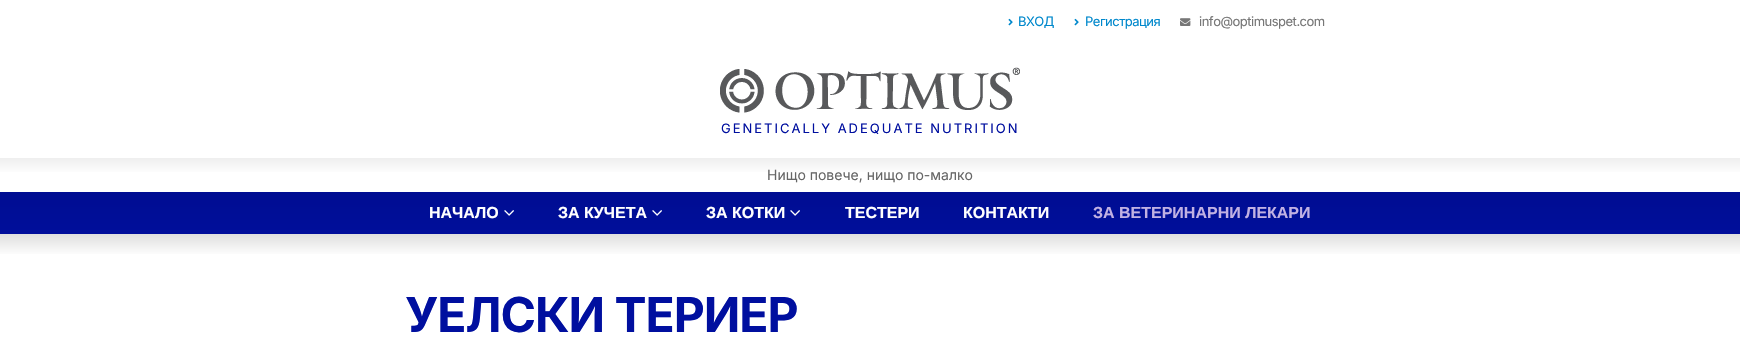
void draw(SkCanvas* canvas) {
    SkPaint paint;
    paint.setAntiAlias(true);
    auto face = [&](const char* family, int weight, float size, bool italic = false) {
        SkFontStyle style(weight, SkFontStyle::kNormal_Width,
            italic ? SkFontStyle::kItalic_Slant : SkFontStyle::kUpright_Slant);
        SkFont result(fontMgr->matchFamilyStyle(family, style), size);
        result.setSubpixel(true);
        return result;
    };
    auto write = [&](const char* s, float x, float y, const SkFont& font, SkColor color) {
        SkPaint ink(SkColor4f::FromColor(color));
        ink.setAntiAlias(true);
        canvas->drawString(s, x, y, font, ink);
    };
    auto writeSpaced = [&](const char* s, float x, float y, const SkFont& font, const SkPaint& ink, float letter, float word) {
        std::vector<SkGlyphID> glyphs(font.countText(s, strlen(s), SkTextEncoding::kUTF8));
        std::vector<float> xs(glyphs.size());
        font.textToGlyphs(s, strlen(s), SkTextEncoding::kUTF8, glyphs);
        font.getXPos(glyphs, xs, x);
        float extra = 0;
        for (size_t i = 0; i < glyphs.size(); i++) {
            xs[i] += extra;
            extra += letter + word * (glyphs[i] == font.unicharToGlyph(' '));
        }
        canvas->drawTextBlob(SkTextBlob::MakeFromPosHGlyphs(glyphs, xs, y, font), 0, 0, ink);
    };
    auto paste = [&](const char* path, float x, float y, float w, float h) {
        auto image = SkImages::DeferredFromEncodedData(SkData::MakeFromFileName(path));
        canvas->drawImageRect(image, SkRect::MakeXYWH(x, y, w, h), SkSamplingOptions());
    };
    canvas->clear(SK_ColorWHITE);
    paste("pic1.png", 1008, 18, 5, 8);
    auto kFont1 = face("Inter", 400, 13);
    paint.setColor(SkColorSetRGB(0, 136, 204));
    writeSpaced("ВХОД", 1018, 26, kFont1, paint, -0.5f, 0);
    paste("pic1.png", 1074, 18, 5, 8);
    writeSpaced("Регистрация", 1085, 26, kFont1, paint, -0.5f, 0);
    paste("pic2.png", 1180, 18, 11, 8);
    paint.setColor(SkColorSetRGB(119, 119, 119));
    writeSpaced("info@optimuspet.com", 1199, 26, kFont1, paint, -0.5f, 0);
    paste("pic3.png", 720, 67, 300, 46);
    paint.setColor(SkColorSetRGB(0, 15, 159));
    writeSpaced("GENETICALLY ADEQUATE NUTRITION", 721, 133, kFont1, paint, 2, 0);
    {
        const SkColor colors[] = {SkColorSetRGB(0, 12, 139), SkColorSetRGB(0, 15, 159)};
        const float stops[] = {0, 1};
        const SkPoint ends[] = {{870, 158}, {870, 256}};
        paint.setShader(SkGradientShader::MakeLinear(ends, colors, stops, 2, SkTileMode::kClamp));
        paint.setAlpha(255);
    }
    canvas->drawRect(SkRect::MakeXYWH(0, 192, 1740, 42), paint);
    {
        const SkColor colors[] = {SkColorSetRGB(239, 239, 239), SK_ColorWHITE, SK_ColorWHITE};
        const float stops[] = {0, 0.5f, 1};
        const SkPoint ends[] = {{870, 158}, {870, 192}};
        paint.setShader(SkGradientShader::MakeLinear(ends, colors, stops, 3, SkTileMode::kClamp));
        paint.setAlpha(255);
    }
    canvas->drawRect(SkRect::MakeXYWH(0, 158, 1740, 14), paint);
    auto kFont2 = face("Inter", 400, 14);
    write("Нищо повече, нищо по-малко", 767, 180, kFont2, SkColorSetRGB(102, 102, 102));
    auto kFont3 = face("Liberation Sans", 700, 16);
    write("НАЧАЛО", 429, 218, kFont3, SK_ColorWHITE);
    paste("pic4.png", 504, 210, 10, 6);
    write("ЗА КУЧЕТА", 558, 218, kFont3, SK_ColorWHITE);
    paste("pic4.png", 652, 210, 10, 6);
    write("ЗА КОТКИ", 706, 218, kFont3, SK_ColorWHITE);
    paste("pic4.png", 790, 210, 10, 6);
    write("ТЕСТЕРИ", 845, 218, kFont3, SK_ColorWHITE);
    write("КОНТАКТИ", 963, 218, kFont3, SK_ColorWHITE);
    write("ЗА ВЕТЕРИНАРНИ ЛЕКАРИ", 1093, 218, kFont3, SkColorSetRGB(193, 177, 227));
    {
        const SkColor colors[] = {SkColorSetRGB(223, 223, 222), SK_ColorWHITE};
        const float stops[] = {0, 1};
        const SkPoint ends[] = {{870, 234}, {870, 256}};
        paint.setShader(SkGradientShader::MakeLinear(ends, colors, stops, 2, SkTileMode::kClamp));
        paint.setAlpha(255);
    }
    canvas->drawRect(SkRect::MakeXYWH(0, 234, 1740, 20), paint);
    auto kFont4 = face("Inter", 700, 48);
    paint.setShader(nullptr);
    paint.setColor(SkColorSetRGB(0, 15, 159));
    writeSpaced("УЕЛСКИ ТЕРИЕР", 405, 332, kFont4, paint, -1, 0);
}
